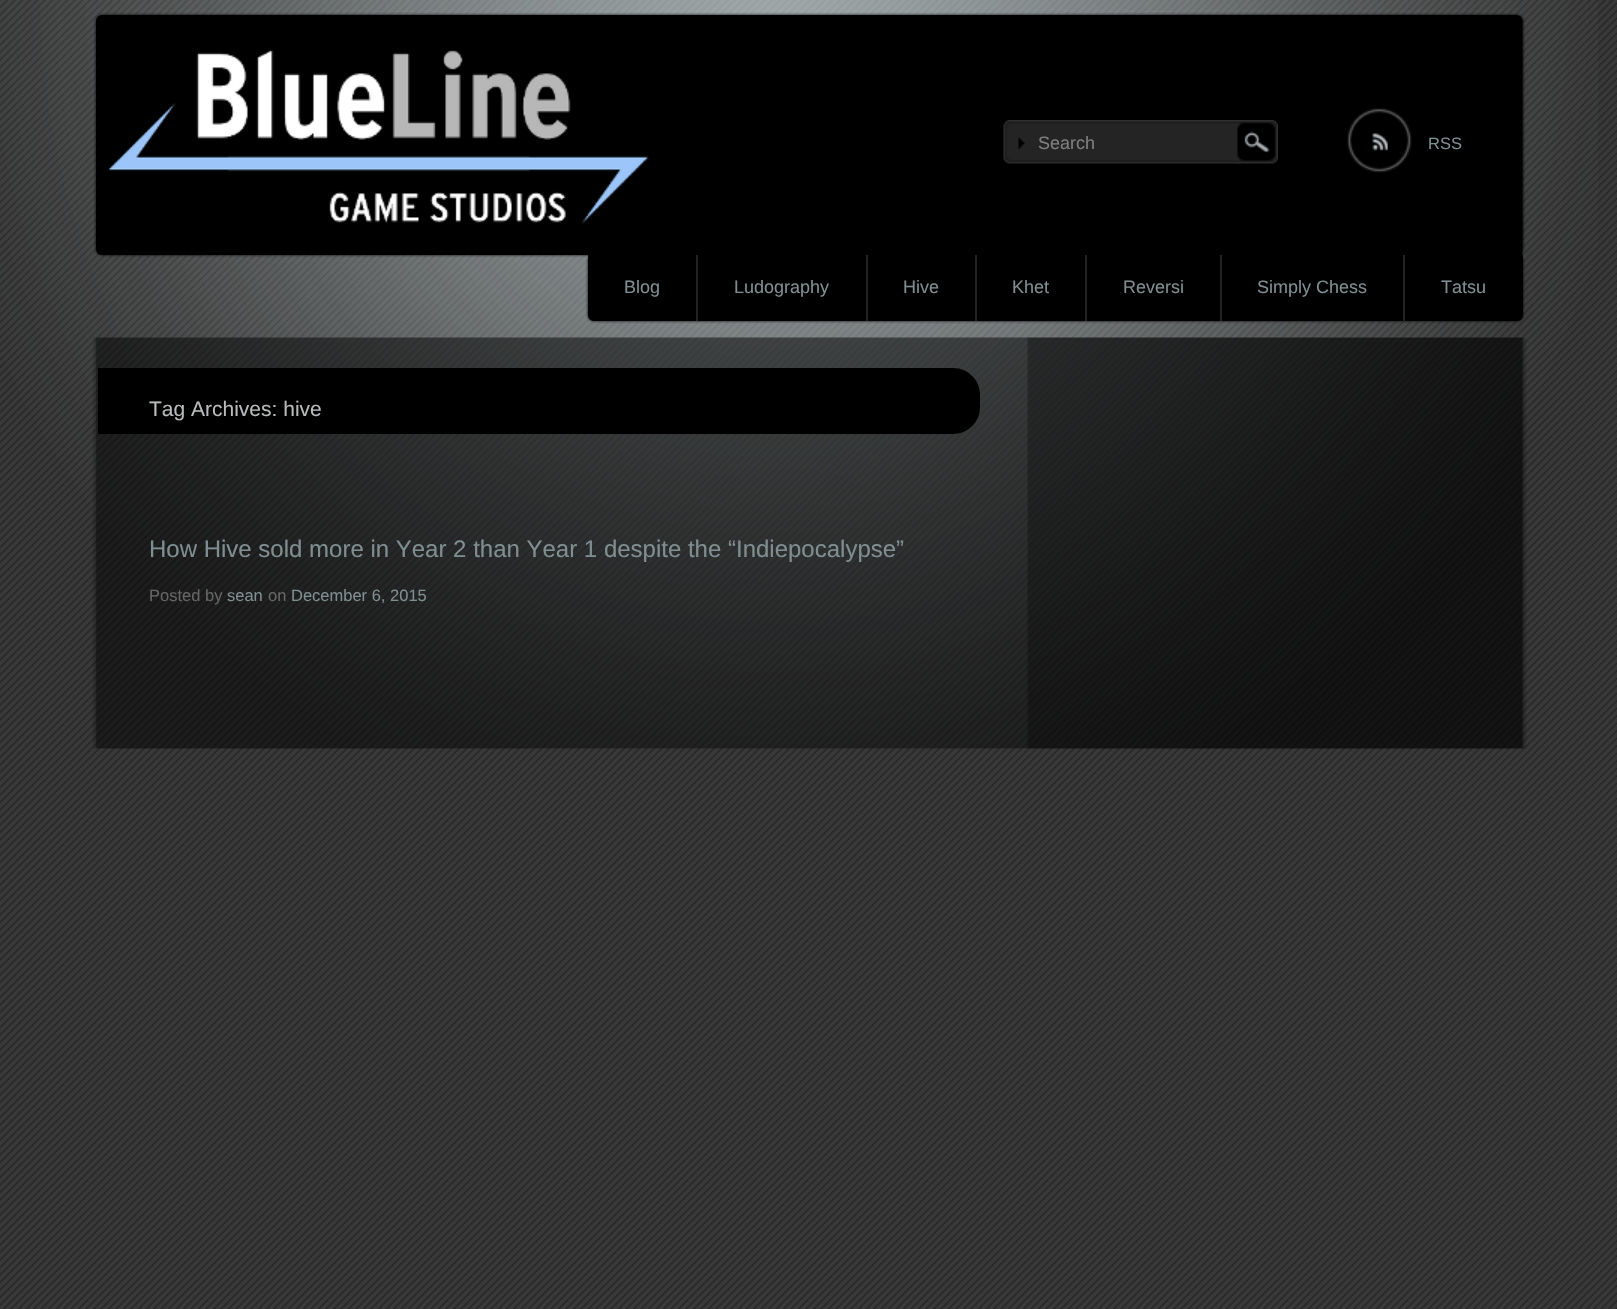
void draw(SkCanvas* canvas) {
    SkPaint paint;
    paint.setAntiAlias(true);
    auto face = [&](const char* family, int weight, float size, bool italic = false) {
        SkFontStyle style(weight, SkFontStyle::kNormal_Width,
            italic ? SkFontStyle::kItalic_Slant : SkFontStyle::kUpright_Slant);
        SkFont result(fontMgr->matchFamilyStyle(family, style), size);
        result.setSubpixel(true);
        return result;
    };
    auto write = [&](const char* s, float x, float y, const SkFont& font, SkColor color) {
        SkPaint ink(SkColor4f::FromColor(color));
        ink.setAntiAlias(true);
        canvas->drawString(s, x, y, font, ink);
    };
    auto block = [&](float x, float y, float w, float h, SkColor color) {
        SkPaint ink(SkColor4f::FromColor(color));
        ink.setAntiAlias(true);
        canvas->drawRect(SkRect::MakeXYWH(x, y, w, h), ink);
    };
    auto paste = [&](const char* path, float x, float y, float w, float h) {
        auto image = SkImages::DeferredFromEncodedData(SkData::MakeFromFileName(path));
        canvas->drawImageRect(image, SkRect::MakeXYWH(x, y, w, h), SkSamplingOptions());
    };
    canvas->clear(SK_ColorWHITE);
    paste("pic1.png", 0, 0, 1617, 1309);
    paste("pic2.png", 0, 0, 1598, 749);
    paint.setColor(SK_ColorBLACK);
    paint.setMaskFilter(SkMaskFilter::MakeBlur(kNormal_SkBlurStyle, 1.5f));
    canvas->drawRoundRect(SkRect::MakeXYWH(588, 255, 935, 66), 6, 6, paint);
    paint.setMaskFilter(nullptr);
    canvas->drawPath(SkPathBuilder().moveTo(588, 255).lineTo(1523, 255).lineTo(1523, 315).cubicTo(1523, 318.5f, 1520.5f, 321, 1517, 321).lineTo(594, 321).cubicTo(590.5f, 321, 588, 318.5f, 588, 315).close().detach(), paint);
    paint.setMaskFilter(SkMaskFilter::MakeBlur(kNormal_SkBlurStyle, 1.5f));
    canvas->drawRoundRect(SkRect::MakeXYWH(96, 15, 1427, 240), 6, 6, paint);
    paint.setMaskFilter(nullptr);
    paste("pic3.png", 96, 15, 1427, 240);
    paste("pic4.png", 1003, 120, 236, 44);
    auto kFont1 = face("Liberation Sans", 400, 18);
    write("Search", 1038, 149, kFont1, SkColorSetRGB(126, 126, 126));
    paste("pic5.png", 1237, 120, 41, 44);
    paste("pic6.png", 1347, 108, 65, 65);
    auto kFont2 = face("Liberation Sans", 400, 16.5f);
    write("RSS", 1428, 149, kFont2, SkColorSetRGB(127, 142, 145));
    write("Blog", 624, 293, kFont1, SkColorSetRGB(127, 142, 145));
    block(696, 255, 2, 66, SkColorSetRGB(34, 34, 34));
    write("Ludography", 734, 293, kFont1, SkColorSetRGB(127, 142, 145));
    block(866, 255, 2, 66, SkColorSetRGB(34, 34, 34));
    write("Hive", 903, 293, kFont1, SkColorSetRGB(127, 142, 145));
    block(975, 255, 2, 66, SkColorSetRGB(34, 34, 34));
    write("Khet", 1012, 293, kFont1, SkColorSetRGB(127, 142, 145));
    block(1085, 255, 2, 66, SkColorSetRGB(34, 34, 34));
    write("Reversi", 1123, 293, kFont1, SkColorSetRGB(127, 142, 145));
    block(1220, 255, 2, 66, SkColorSetRGB(34, 34, 34));
    write("Simply Chess", 1257, 293, kFont1, SkColorSetRGB(127, 142, 145));
    block(1403, 255, 2, 66, SkColorSetRGB(34, 34, 34));
    write("Tatsu", 1441, 293, kFont1, SkColorSetRGB(127, 142, 145));
    paste("pic7.png", 92, 337, 1435, 412);
    canvas->drawPath(SkPathBuilder().moveTo(98, 368).lineTo(953, 368).cubicTo(968, 368, 980, 380, 980, 395).lineTo(980, 407).cubicTo(980, 422, 968, 434, 953, 434).lineTo(98, 434).close().detach(), paint);
    auto kFont3 = face("Liberation Sans", 400, 21);
    write("Tag Archives: hive", 149, 416, kFont3, SkColorSetRGB(184, 186, 187));
    auto kFont4 = face("Liberation Sans", 400, 24);
    write("How Hive sold more in Year 2 than Year 1 despite the “Indiepocalypse”", 149, 557, kFont4, SkColorSetRGB(127, 142, 145));
    write("Posted by", 149, 601, kFont2, SkColorSetRGB(102, 102, 102));
    write("sean", 227, 601, kFont2, SkColorSetRGB(127, 142, 145));
    write("on", 268, 601, kFont2, SkColorSetRGB(102, 102, 102));
    write("December 6, 2015", 291, 601, kFont2, SkColorSetRGB(127, 142, 145));
}
